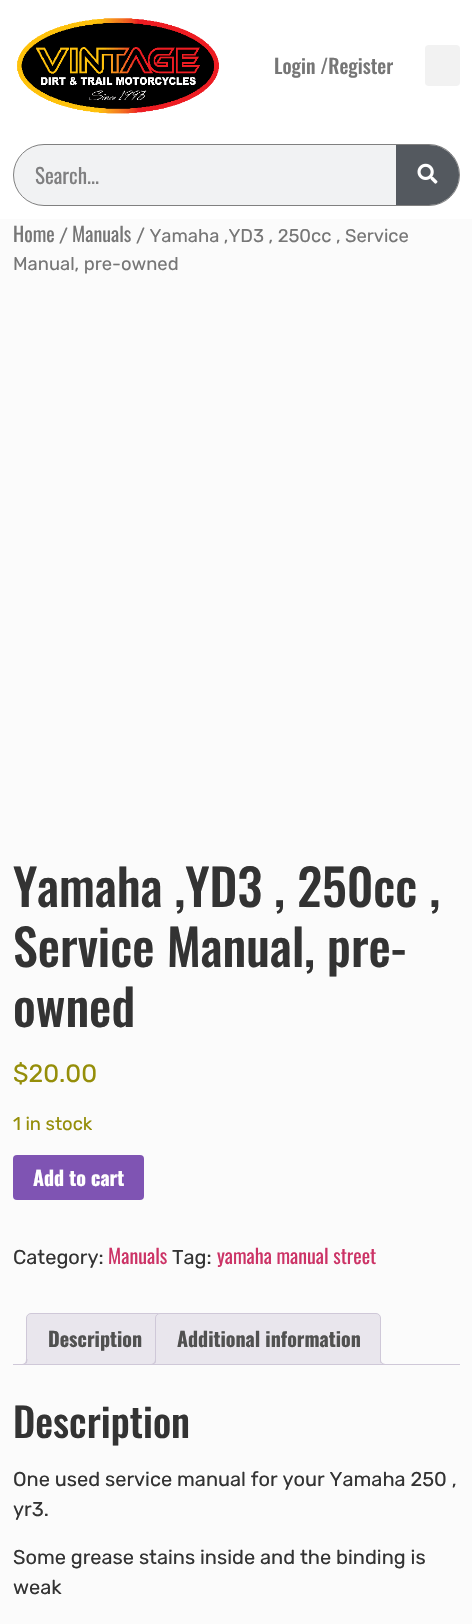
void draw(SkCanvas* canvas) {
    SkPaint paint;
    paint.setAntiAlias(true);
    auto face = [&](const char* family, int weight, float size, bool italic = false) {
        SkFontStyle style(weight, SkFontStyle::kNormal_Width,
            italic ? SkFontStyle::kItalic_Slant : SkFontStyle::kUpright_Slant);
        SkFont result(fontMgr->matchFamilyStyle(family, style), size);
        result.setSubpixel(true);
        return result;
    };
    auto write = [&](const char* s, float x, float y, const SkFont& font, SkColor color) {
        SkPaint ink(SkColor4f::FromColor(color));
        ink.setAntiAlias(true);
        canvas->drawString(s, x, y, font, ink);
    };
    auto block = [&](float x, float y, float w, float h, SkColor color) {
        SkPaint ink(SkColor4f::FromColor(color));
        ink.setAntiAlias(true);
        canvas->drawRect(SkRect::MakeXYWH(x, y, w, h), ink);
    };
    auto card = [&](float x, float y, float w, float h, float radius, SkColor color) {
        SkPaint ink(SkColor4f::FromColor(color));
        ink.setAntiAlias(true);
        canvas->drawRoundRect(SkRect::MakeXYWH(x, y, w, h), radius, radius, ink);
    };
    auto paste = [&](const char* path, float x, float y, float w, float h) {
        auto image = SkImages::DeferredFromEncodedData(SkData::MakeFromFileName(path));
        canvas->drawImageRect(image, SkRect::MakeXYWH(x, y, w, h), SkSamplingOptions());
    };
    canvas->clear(SkColorSetRGB(251, 251, 251));
    block(0, 0, 472, 219, SK_ColorWHITE);
    paste("pic1.png", 17, 18, 202, 96);
    auto kFont1 = face("Oswald", 500, 20);
    write("Login /Register", 274, 74, kFont1, SkColorSetRGB(118, 118, 118));
    card(425, 45, 35, 41, 4, SkColorSetRGB(242, 242, 242));
    paint.setColor(SkColorSetRGB(241, 242, 243));
    canvas->drawRoundRect(SkRect::MakeXYWH(13.5f, 144.5f, 446, 61), 30.5f, 30.5f, paint);
    paint.setStyle(SkPaint::kStroke_Style);
    paint.setStrokeWidth(1);
    paint.setColor(SkColorSetRGB(128, 128, 128));
    canvas->drawRoundRect(SkRect::MakeXYWH(13.5f, 144.5f, 446, 61), 30.5f, 30.5f, paint);
    auto kFont2 = face("Oswald", 400, 21);
    write("Search...", 35, 184, kFont2, SkColorSetRGB(127, 127, 128));
    paint.setStyle(SkPaint::kFill_Style);
    paint.setColor(SkColorSetRGB(84, 89, 95));
    canvas->drawPath(SkPathBuilder().moveTo(396, 145).lineTo(429, 145).cubicTo(445.5f, 145, 459, 158.5f, 459, 175).cubicTo(459, 191.5f, 445.5f, 205, 429, 205).lineTo(396, 205).close().detach(), paint);
    paste("pic2.png", 417, 163, 21, 21);
    auto kFont3 = face("Oswald", 400, 20);
    write("Home", 13, 242, kFont3, SkColorSetRGB(118, 118, 118));
    auto kFont4 = face("Rubik", 400, 18.4f);
    write("/", 59, 242, kFont4, SkColorSetRGB(118, 118, 118));
    write("Manuals", 72, 242, kFont3, SkColorSetRGB(118, 118, 118));
    write("/ Yamaha ,YD3 , 250cc , Service", 136, 242, kFont4, SkColorSetRGB(118, 118, 118));
    write("Manual, pre-owned", 13, 270, kFont4, SkColorSetRGB(118, 118, 118));
    auto kFont5 = face("Oswald", 500, 50);
    write("Yamaha ,YD3 , 250cc ,", 13, 907, kFont5, SkColorSetRGB(51, 51, 51));
    write("Service Manual, pre-", 13, 967, kFont5, SkColorSetRGB(51, 51, 51));
    write("owned", 13, 1027, kFont5, SkColorSetRGB(51, 51, 51));
    auto kFont6 = face("Rubik", 400, 25);
    write("$20.00", 13, 1082, kFont6, SkColorSetRGB(149, 142, 9));
    write("1 in stock", 13, 1130, kFont4, SkColorSetRGB(149, 142, 9));
    card(13, 1155, 131, 45, 4, SkColorSetRGB(127, 84, 179));
    auto kFont7 = face("Oswald", 700, 20);
    write("Add to cart", 33, 1186, kFont7, SK_ColorWHITE);
    auto kFont8 = face("Rubik", 400, 20);
    write("Category:", 13, 1264, kFont8, SkColorSetRGB(51, 51, 51));
    write("Manuals", 108, 1264, kFont3, SkColorSetRGB(204, 51, 102));
    write("Tag:", 172, 1264, kFont8, SkColorSetRGB(51, 51, 51));
    write("yamaha manual street", 217, 1264, kFont3, SkColorSetRGB(204, 51, 102));
    paint.setColor(SkColorSetRGB(233, 230, 237));
    canvas->drawPath(SkPathBuilder().moveTo(31, 1313.5f).lineTo(158, 1313.5f).cubicTo(160.5f, 1313.5f, 162.5f, 1315.5f, 162.5f, 1318).lineTo(162.5f, 1364.5f).lineTo(26.5f, 1364.5f).lineTo(26.5f, 1318).cubicTo(26.5f, 1315.5f, 28.5f, 1313.5f, 31, 1313.5f).close().detach(), paint);
    paint.setStyle(SkPaint::kStroke_Style);
    paint.setColor(SkColorSetRGB(207, 200, 216));
    canvas->drawPath(SkPathBuilder().moveTo(31, 1313.5f).lineTo(158, 1313.5f).cubicTo(160.5f, 1313.5f, 162.5f, 1315.5f, 162.5f, 1318).lineTo(162.5f, 1364.5f).lineTo(26.5f, 1364.5f).lineTo(26.5f, 1318).cubicTo(26.5f, 1315.5f, 28.5f, 1313.5f, 31, 1313.5f).close().detach(), paint);
    write("Description", 48, 1347, kFont7, SkColorSetRGB(81, 81, 81));
    canvas->save();
    canvas->clipRect(SkRect::MakeXYWH(13, 1313, 447, 52));
    paint.setStyle(SkPaint::kFill_Style);
    paint.setColor(SkColorSetRGB(233, 230, 237));
    canvas->drawPath(SkPathBuilder().moveTo(24, 1365).lineTo(24, 1368).cubicTo(29, 1368, 30, 1365.5f, 30, 1361).lineTo(27.5f, 1361).cubicTo(27, 1363, 25.5f, 1364, 24, 1365).close().detach(), paint);
    canvas->restore();
    paint.setColor(SkColorSetRGB(207, 200, 216));
    canvas->drawPath(SkPathBuilder(SkPathFillType::kEvenOdd).moveTo(21, 1359).lineTo(27.5f, 1359).cubicTo(27.5f, 1363, 25.5f, 1365, 21, 1365).close().moveTo(21, 1359).lineTo(26, 1359).cubicTo(26, 1362.5f, 25, 1364, 21, 1364).close().detach(), paint);
    paint.setColor(SkColorSetRGB(233, 230, 237));
    canvas->drawPath(SkPathBuilder().moveTo(160, 1313.5f).lineTo(376, 1313.5f).cubicTo(378.5f, 1313.5f, 380.5f, 1315.5f, 380.5f, 1318).lineTo(380.5f, 1364.5f).lineTo(155.5f, 1364.5f).lineTo(155.5f, 1318).cubicTo(155.5f, 1315.5f, 157.5f, 1313.5f, 160, 1313.5f).close().detach(), paint);
    paint.setStyle(SkPaint::kStroke_Style);
    paint.setColor(SkColorSetRGB(207, 200, 216));
    canvas->drawPath(SkPathBuilder().moveTo(160, 1313.5f).lineTo(376, 1313.5f).cubicTo(378.5f, 1313.5f, 380.5f, 1315.5f, 380.5f, 1318).lineTo(380.5f, 1364.5f).lineTo(155.5f, 1364.5f).lineTo(155.5f, 1318).cubicTo(155.5f, 1315.5f, 157.5f, 1313.5f, 160, 1313.5f).close().detach(), paint);
    write("Additional information", 177, 1347, kFont7, SkColorSetRGB(81, 81, 81));
    canvas->save();
    canvas->clipRect(SkRect::MakeXYWH(13, 1313, 447, 52));
    paint.setStyle(SkPaint::kFill_Style);
    paint.setColor(SkColorSetRGB(233, 230, 237));
    canvas->drawPath(SkPathBuilder().moveTo(153, 1364.5f).lineTo(153, 1368).cubicTo(158, 1368, 159, 1365.5f, 159, 1361).lineTo(156, 1361).cubicTo(156, 1362.5f, 154.5f, 1364, 153, 1364.5f).close().detach(), paint);
    canvas->restore();
    paint.setColor(SkColorSetRGB(207, 200, 216));
    canvas->drawPath(SkPathBuilder(SkPathFillType::kEvenOdd).moveTo(150, 1359).lineTo(156, 1359).cubicTo(156, 1363, 154.5f, 1365, 150, 1365).close().moveTo(150, 1359).lineTo(155, 1359).cubicTo(155, 1362.5f, 153.5f, 1364, 150, 1364).close().detach(), paint);
    canvas->save();
    canvas->clipRect(SkRect::MakeXYWH(13, 1313, 447, 52));
    paint.setColor(SkColorSetRGB(233, 230, 237));
    canvas->drawPath(SkPathBuilder().moveTo(378, 1361).cubicTo(378, 1365.5f, 379, 1368, 384, 1368).lineTo(384, 1365).cubicTo(382, 1364.5f, 380.5f, 1363, 380, 1361).close().detach(), paint);
    canvas->restore();
    paint.setColor(SkColorSetRGB(207, 200, 216));
    canvas->drawPath(SkPathBuilder(SkPathFillType::kEvenOdd).moveTo(380, 1359).lineTo(386, 1359).lineTo(386, 1365).cubicTo(383, 1365, 380, 1363.5f, 380, 1360).close().moveTo(381, 1359).lineTo(386, 1359).lineTo(386, 1364).cubicTo(384, 1364, 381, 1363, 381, 1360).close().detach(), paint);
    block(13, 1364, 447, 1, SkColorSetRGB(207, 200, 216));
    auto kFont9 = face("Oswald", 500, 40);
    write("Description", 13, 1438, kFont9, SkColorSetRGB(51, 51, 51));
    write("One used service manual for your Yamaha 250 ,", 13, 1486, kFont8, SkColorSetRGB(51, 51, 51));
    write("yr3.", 13, 1516, kFont8, SkColorSetRGB(51, 51, 51));
    write("Some grease stains inside and the binding is", 13, 1564, kFont8, SkColorSetRGB(51, 51, 51));
    write("weak", 13, 1594, kFont8, SkColorSetRGB(51, 51, 51));
}
